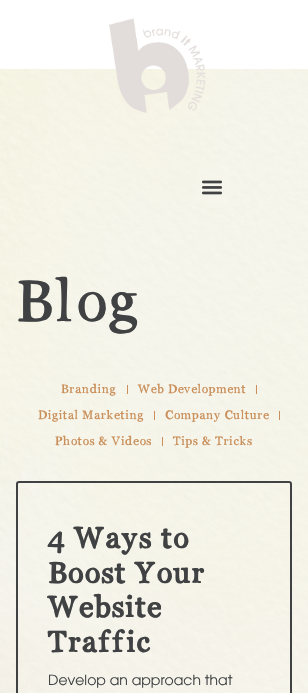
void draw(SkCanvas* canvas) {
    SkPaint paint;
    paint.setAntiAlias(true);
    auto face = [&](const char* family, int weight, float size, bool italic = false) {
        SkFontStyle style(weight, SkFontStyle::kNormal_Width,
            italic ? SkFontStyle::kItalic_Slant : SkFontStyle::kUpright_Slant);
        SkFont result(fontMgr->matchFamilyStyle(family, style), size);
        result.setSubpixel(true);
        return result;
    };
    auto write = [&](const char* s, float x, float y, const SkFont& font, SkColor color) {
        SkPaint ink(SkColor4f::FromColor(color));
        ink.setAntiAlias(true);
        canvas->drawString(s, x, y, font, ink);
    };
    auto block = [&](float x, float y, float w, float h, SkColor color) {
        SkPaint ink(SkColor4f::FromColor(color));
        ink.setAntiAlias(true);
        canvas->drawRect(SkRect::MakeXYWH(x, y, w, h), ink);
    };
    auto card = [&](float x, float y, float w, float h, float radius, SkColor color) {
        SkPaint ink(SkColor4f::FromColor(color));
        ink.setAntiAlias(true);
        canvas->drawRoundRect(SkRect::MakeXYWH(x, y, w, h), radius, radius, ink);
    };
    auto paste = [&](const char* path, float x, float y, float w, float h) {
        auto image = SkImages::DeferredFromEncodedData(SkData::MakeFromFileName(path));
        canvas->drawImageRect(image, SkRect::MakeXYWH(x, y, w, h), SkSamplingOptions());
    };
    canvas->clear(SK_ColorWHITE);
    paste("pic3.png", 0, 69, 308, 624);
    paste("pic1.png", 109, 18, 97, 95);
    card(196, 170, 33, 33, 3, SkColorSetARGB(191, 246, 245, 236));
    paste("pic2.png", 201, 180, 22, 15);
    auto kFont1 = face("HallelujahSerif", 500, 58);
    write("Blog", 16, 321, kFont1, SkColorSetRGB(63, 65, 66));
    auto kFont2 = face("HallelujahSerif", 500, 12);
    write("Branding", 61, 393, kFont2, SkColorSetRGB(202, 144, 91));
    block(127, 385, 1, 9, SkColorSetRGB(202, 144, 91));
    write("Web Development", 138, 393, kFont2, SkColorSetRGB(202, 144, 91));
    block(256, 385, 1, 9, SkColorSetRGB(202, 144, 91));
    write("Digital Marketing", 38, 419, kFont2, SkColorSetRGB(202, 144, 91));
    block(154, 411, 1, 9, SkColorSetRGB(202, 144, 91));
    write("Company Culture", 165, 419, kFont2, SkColorSetRGB(202, 144, 91));
    block(279, 411, 1, 9, SkColorSetRGB(202, 144, 91));
    write("Photos & Videos", 55, 445, kFont2, SkColorSetRGB(202, 144, 91));
    block(162, 437, 1, 9, SkColorSetRGB(202, 144, 91));
    write("Tips & Tricks", 173, 445, kFont2, SkColorSetRGB(202, 144, 91));
    paint.setStyle(SkPaint::kStroke_Style);
    paint.setStrokeWidth(2);
    paint.setColor(SkColorSetRGB(63, 65, 66));
    canvas->drawRoundRect(SkRect::MakeXYWH(17, 482, 274, 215), 2, 2, paint);
    auto kFont3 = face("HallelujahSerif", 700, 29);
    write("4 Ways to", 48, 548, kFont3, SkColorSetRGB(63, 65, 66));
    write("Boost Your", 48, 583, kFont3, SkColorSetRGB(63, 65, 66));
    write("Website", 48, 617, kFont3, SkColorSetRGB(63, 65, 66));
    write("Traffic", 48, 652, kFont3, SkColorSetRGB(63, 65, 66));
    auto kFont4 = face("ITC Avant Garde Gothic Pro", 300, 14);
    write("Develop an approach that", 48, 685, kFont4, SkColorSetRGB(63, 65, 66));
}
